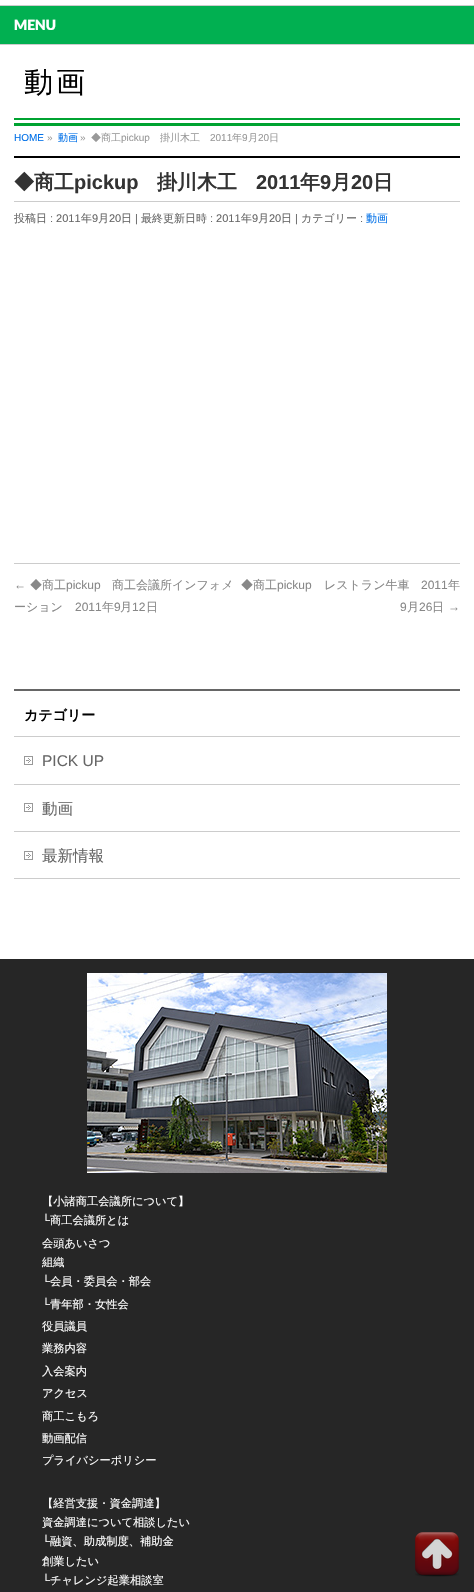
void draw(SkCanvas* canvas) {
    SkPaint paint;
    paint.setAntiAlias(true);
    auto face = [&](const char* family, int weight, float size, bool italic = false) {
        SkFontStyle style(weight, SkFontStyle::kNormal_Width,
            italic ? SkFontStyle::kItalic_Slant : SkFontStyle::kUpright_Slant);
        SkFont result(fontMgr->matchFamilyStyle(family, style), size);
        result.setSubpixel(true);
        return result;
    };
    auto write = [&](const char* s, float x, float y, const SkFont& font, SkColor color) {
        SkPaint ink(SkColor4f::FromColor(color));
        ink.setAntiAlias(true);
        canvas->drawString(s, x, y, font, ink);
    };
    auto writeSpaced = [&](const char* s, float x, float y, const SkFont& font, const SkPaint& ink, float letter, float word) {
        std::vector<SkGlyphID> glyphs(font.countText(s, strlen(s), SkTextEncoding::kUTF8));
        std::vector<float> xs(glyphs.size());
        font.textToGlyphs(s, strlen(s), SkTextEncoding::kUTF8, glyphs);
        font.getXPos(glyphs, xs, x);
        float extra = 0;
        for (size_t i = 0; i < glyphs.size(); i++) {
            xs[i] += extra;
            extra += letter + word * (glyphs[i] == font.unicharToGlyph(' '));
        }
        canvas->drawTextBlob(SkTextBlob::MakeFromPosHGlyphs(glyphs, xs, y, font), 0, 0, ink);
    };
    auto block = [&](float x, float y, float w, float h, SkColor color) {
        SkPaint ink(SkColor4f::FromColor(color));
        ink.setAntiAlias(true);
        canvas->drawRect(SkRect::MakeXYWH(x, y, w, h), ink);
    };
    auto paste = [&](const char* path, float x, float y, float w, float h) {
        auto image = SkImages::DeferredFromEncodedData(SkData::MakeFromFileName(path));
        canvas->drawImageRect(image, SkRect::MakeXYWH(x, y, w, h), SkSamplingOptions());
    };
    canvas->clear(SK_ColorWHITE);
    block(0, 5, 474, 1, SkColorSetRGB(204, 204, 204));
    block(0, 44, 474, 1, SkColorSetRGB(204, 204, 204));
    block(0, 6, 474, 38, SkColorSetRGB(1, 176, 81));
    auto kFont1 = face("Lato", 900, 14);
    write("MENU", 14, 30, kFont1, SK_ColorWHITE);
    auto kFont2 = face("WenQuanYi Zen Hei", 500, 29);
    paint.setColor(SK_ColorBLACK);
    writeSpaced("動画", 24, 92, kFont2, paint, 3, 0);
    block(14, 118, 446, 2, SkColorSetRGB(0, 163, 49));
    block(14, 123, 446, 3, SkColorSetRGB(0, 163, 49));
    auto kFont3 = face("Liberation Sans", 400, 10);
    write("HOME", 14, 141, kFont3, SkColorSetRGB(0, 112, 232));
    write("»", 47, 141, kFont3, SkColorSetRGB(153, 153, 153));
    auto kFont4 = face("WenQuanYi Zen Hei", 500, 10);
    write("動画", 58, 141, kFont4, SkColorSetRGB(0, 112, 232));
    write("»", 80, 141, kFont3, SkColorSetRGB(153, 153, 153));
    write("◆商工", 91, 141, kFont4, SkColorSetRGB(153, 153, 153));
    write("pickup", 121, 141, kFont3, SkColorSetRGB(153, 153, 153));
    write("掛川木工", 160, 141, kFont4, SkColorSetRGB(153, 153, 153));
    write("2011", 210, 141, kFont3, SkColorSetRGB(153, 153, 153));
    write("年", 232, 141, kFont4, SkColorSetRGB(153, 153, 153));
    write("9", 242, 141, kFont3, SkColorSetRGB(153, 153, 153));
    write("月", 248, 141, kFont4, SkColorSetRGB(153, 153, 153));
    write("20", 258, 141, kFont3, SkColorSetRGB(153, 153, 153));
    write("日", 269, 141, kFont4, SkColorSetRGB(153, 153, 153));
    block(14, 156, 446, 2, SK_ColorBLACK);
    block(14, 201, 446, 1, SkColorSetRGB(204, 204, 204));
    auto kFont5 = face("WenQuanYi Zen Hei", 700, 20);
    write("◆商工", 14, 189, kFont5, SkColorSetRGB(51, 51, 51));
    auto kFont6 = face("Liberation Sans", 700, 20);
    write("pickup", 74, 189, kFont6, SkColorSetRGB(51, 51, 51));
    write("掛川木工", 157, 189, kFont5, SkColorSetRGB(51, 51, 51));
    write("2011", 256, 189, kFont6, SkColorSetRGB(51, 51, 51));
    write("年", 300, 189, kFont5, SkColorSetRGB(51, 51, 51));
    write("9", 320, 189, kFont6, SkColorSetRGB(51, 51, 51));
    write("月", 331, 189, kFont5, SkColorSetRGB(51, 51, 51));
    write("20", 351, 189, kFont6, SkColorSetRGB(51, 51, 51));
    write("日", 373, 189, kFont5, SkColorSetRGB(51, 51, 51));
    auto kFont7 = face("WenQuanYi Zen Hei", 500, 11);
    write("投稿日", 14, 222, kFont7, SkColorSetRGB(102, 102, 102));
    auto kFont8 = face("Liberation Sans", 400, 11);
    write(": 2011", 50, 222, kFont8, SkColorSetRGB(102, 102, 102));
    write("年", 81, 222, kFont7, SkColorSetRGB(102, 102, 102));
    write("9", 92, 222, kFont8, SkColorSetRGB(102, 102, 102));
    write("月", 98, 222, kFont7, SkColorSetRGB(102, 102, 102));
    write("20", 109, 222, kFont8, SkColorSetRGB(102, 102, 102));
    write("日", 121, 222, kFont7, SkColorSetRGB(102, 102, 102));
    write("|", 135, 222, kFont8, SkColorSetRGB(102, 102, 102));
    write("最終更新日時", 141, 222, kFont7, SkColorSetRGB(102, 102, 102));
    write(": 2011", 210, 222, kFont8, SkColorSetRGB(102, 102, 102));
    write("年", 241, 222, kFont7, SkColorSetRGB(102, 102, 102));
    write("9", 252, 222, kFont8, SkColorSetRGB(102, 102, 102));
    write("月", 258, 222, kFont7, SkColorSetRGB(102, 102, 102));
    write("20", 269, 222, kFont8, SkColorSetRGB(102, 102, 102));
    write("日", 281, 222, kFont7, SkColorSetRGB(102, 102, 102));
    write("|", 295, 222, kFont8, SkColorSetRGB(102, 102, 102));
    write("カテゴリー", 301, 222, kFont7, SkColorSetRGB(102, 102, 102));
    write(":", 360, 222, kFont8, SkColorSetRGB(102, 102, 102));
    write("動画", 366, 222, kFont7, SkColorSetRGB(0, 112, 232));
    block(14, 563, 446, 1, SkColorSetRGB(204, 204, 204));
    auto kFont9 = face("Liberation Sans", 400, 12);
    write("←", 14, 589, kFont9, SkColorSetRGB(136, 136, 136));
    auto kFont10 = face("WenQuanYi Zen Hei", 500, 12);
    write("◆商工", 30, 589, kFont10, SkColorSetRGB(136, 136, 136));
    write("pickup", 66, 589, kFont9, SkColorSetRGB(136, 136, 136));
    write("商工会議所インフォメ", 112, 589, kFont10, SkColorSetRGB(136, 136, 136));
    write("ーション", 14, 611, kFont10, SkColorSetRGB(136, 136, 136));
    write("2011", 75, 611, kFont9, SkColorSetRGB(136, 136, 136));
    write("年", 102, 611, kFont10, SkColorSetRGB(136, 136, 136));
    write("9", 114, 611, kFont9, SkColorSetRGB(136, 136, 136));
    write("月", 120, 611, kFont10, SkColorSetRGB(136, 136, 136));
    write("12", 132, 611, kFont9, SkColorSetRGB(136, 136, 136));
    write("日", 146, 611, kFont10, SkColorSetRGB(136, 136, 136));
    write("◆商工", 241, 589, kFont10, SkColorSetRGB(136, 136, 136));
    write("pickup", 277, 589, kFont9, SkColorSetRGB(136, 136, 136));
    write("レストラン牛車", 324, 589, kFont10, SkColorSetRGB(136, 136, 136));
    write("2011", 421, 589, kFont9, SkColorSetRGB(136, 136, 136));
    write("年", 448, 589, kFont10, SkColorSetRGB(136, 136, 136));
    write("9", 400, 611, kFont9, SkColorSetRGB(136, 136, 136));
    write("月", 407, 611, kFont10, SkColorSetRGB(136, 136, 136));
    write("26", 419, 611, kFont9, SkColorSetRGB(136, 136, 136));
    write("日", 432, 611, kFont10, SkColorSetRGB(136, 136, 136));
    write("→", 448, 611, kFont9, SkColorSetRGB(136, 136, 136));
    block(14, 689, 446, 2, SkColorSetRGB(102, 102, 102));
    block(14, 736, 446, 1, SkColorSetRGB(204, 204, 204));
    auto kFont11 = face("WenQuanYi Zen Hei", 700, 14);
    write("カテゴリー", 24, 720, kFont11, SK_ColorBLACK);
    block(14, 784, 446, 1, SkColorSetRGB(204, 204, 204));
    paste("pic1.png", 24, 756, 9, 9);
    auto kFont12 = face("Liberation Sans", 400, 15.5f);
    write("PICK UP", 42, 766, kFont12, SkColorSetRGB(102, 102, 102));
    block(14, 831, 446, 1, SkColorSetRGB(204, 204, 204));
    paste("pic1.png", 24, 803, 9, 9);
    auto kFont13 = face("WenQuanYi Zen Hei", 500, 15.5f);
    write("動画", 42, 814, kFont13, SkColorSetRGB(102, 102, 102));
    block(14, 878, 446, 1, SkColorSetRGB(204, 204, 204));
    paste("pic1.png", 24, 851, 9, 9);
    write("最新情報", 42, 861, kFont13, SkColorSetRGB(102, 102, 102));
    block(0, 959, 474, 633, SkColorSetRGB(38, 38, 38));
    paste("pic2.png", 87, 973, 300, 200);
    auto kFont14 = face("WenQuanYi Zen Hei", 500, 11.25f);
    write("【小諸商工会議所について】", 42, 1205, kFont14, SK_ColorWHITE);
    auto kFont15 = face("Liberation Sans", 400, 11.25f);
    write("└", 42, 1224, kFont15, SK_ColorWHITE);
    write("商工会議所とは", 50, 1224, kFont14, SK_ColorWHITE);
    write("会頭あいさつ", 42, 1247, kFont14, SK_ColorWHITE);
    write("組織", 42, 1266, kFont14, SK_ColorWHITE);
    write("└", 42, 1285, kFont15, SK_ColorWHITE);
    write("会員・委員会・部会", 50, 1285, kFont14, SK_ColorWHITE);
    write("└", 42, 1308, kFont15, SK_ColorWHITE);
    write("青年部・女性会", 50, 1308, kFont14, SK_ColorWHITE);
    write("役員議員", 42, 1330, kFont14, SK_ColorWHITE);
    write("業務内容", 42, 1352, kFont14, SK_ColorWHITE);
    write("入会案内", 42, 1375, kFont14, SK_ColorWHITE);
    write("アクセス", 42, 1397, kFont14, SK_ColorWHITE);
    write("商工こもろ", 42, 1420, kFont14, SK_ColorWHITE);
    write("動画配信", 42, 1442, kFont14, SK_ColorWHITE);
    write("プライバシーポリシー", 42, 1464, kFont14, SK_ColorWHITE);
    write("【経営支援・資金調達】", 42, 1507, kFont14, SK_ColorWHITE);
    write("資金調達について相談したい", 42, 1526, kFont14, SK_ColorWHITE);
    write("└", 42, 1545, kFont15, SK_ColorWHITE);
    write("融資、助成制度、補助金", 50, 1545, kFont14, SK_ColorWHITE);
    write("創業したい", 42, 1565, kFont14, SK_ColorWHITE);
    write("└", 42, 1584, kFont15, SK_ColorWHITE);
    write("チャレンジ起業相談室", 50, 1584, kFont14, SK_ColorWHITE);
    paste("pic3.png", 415, 1532, 44, 45);
}
